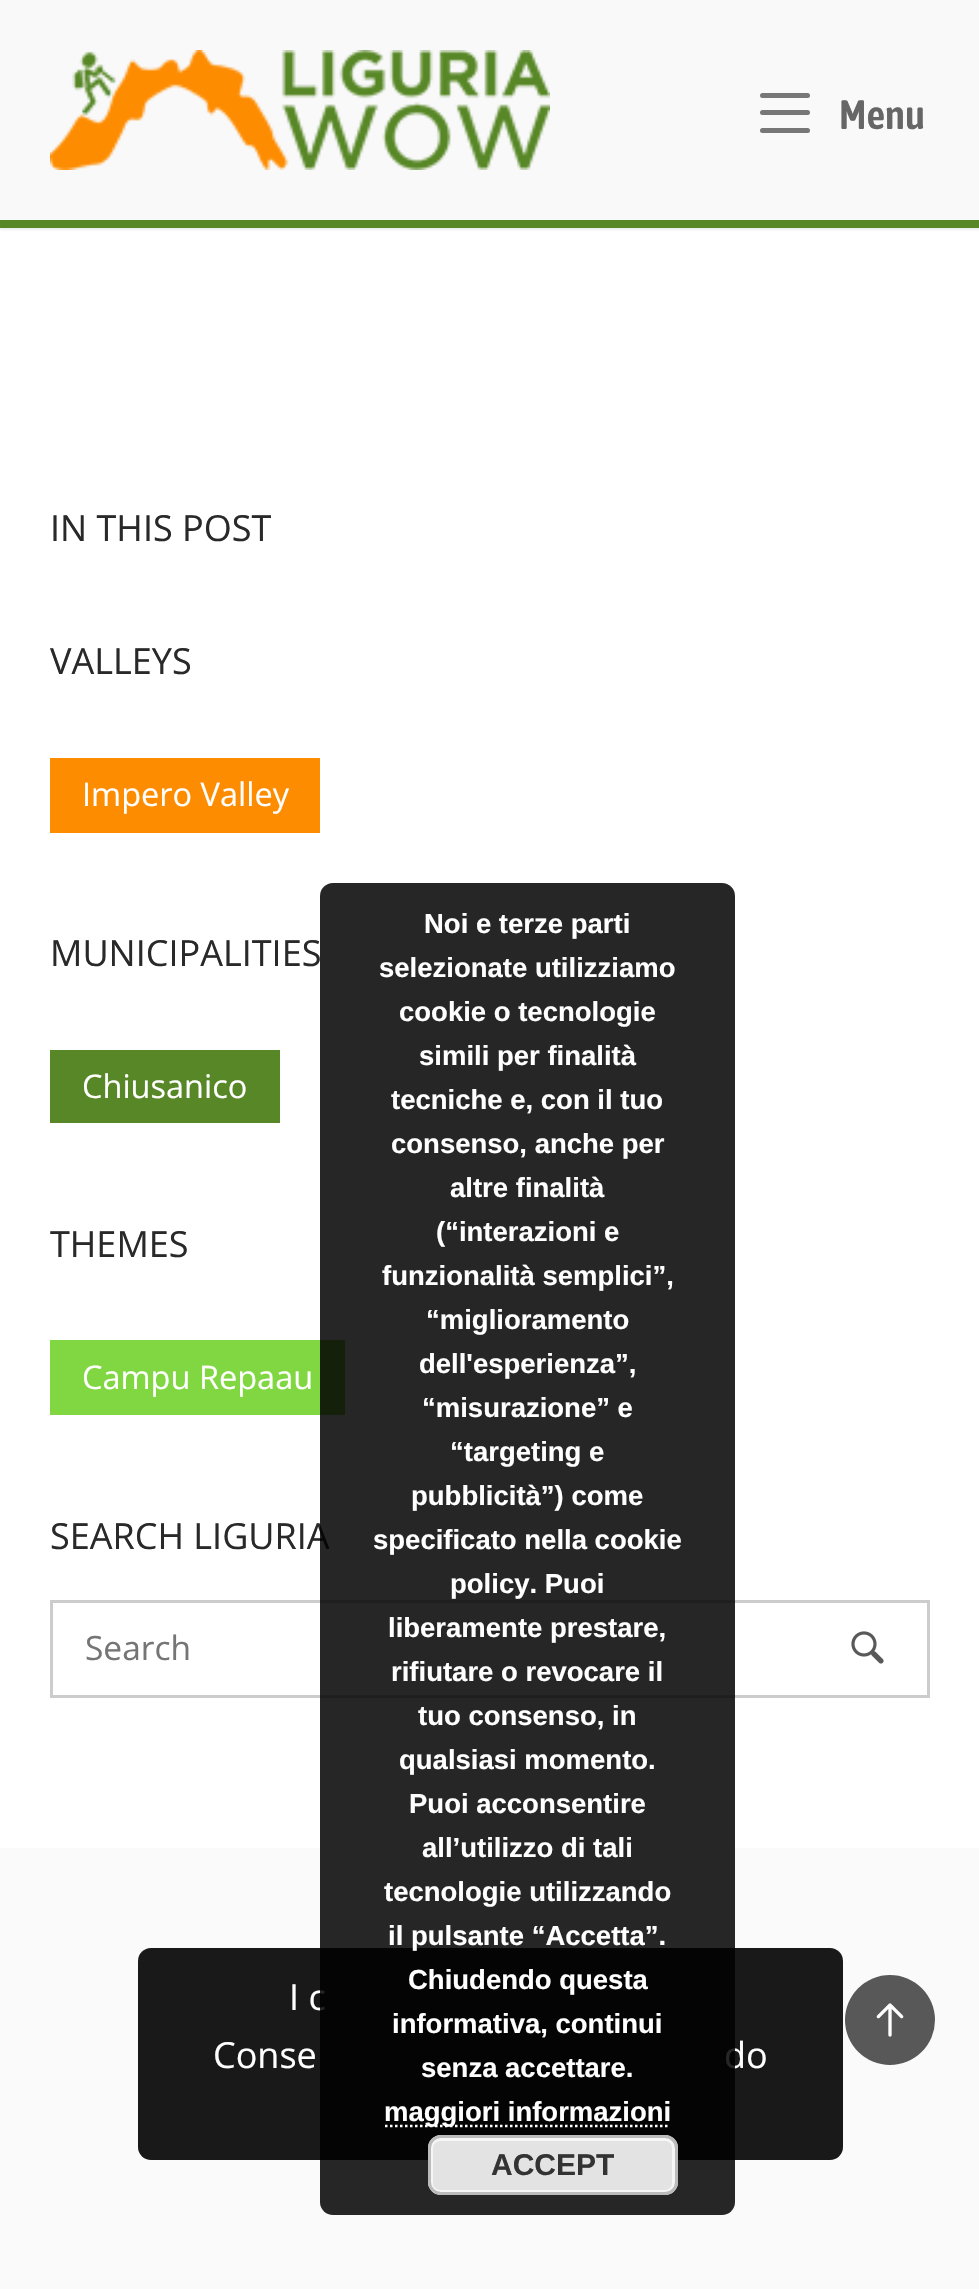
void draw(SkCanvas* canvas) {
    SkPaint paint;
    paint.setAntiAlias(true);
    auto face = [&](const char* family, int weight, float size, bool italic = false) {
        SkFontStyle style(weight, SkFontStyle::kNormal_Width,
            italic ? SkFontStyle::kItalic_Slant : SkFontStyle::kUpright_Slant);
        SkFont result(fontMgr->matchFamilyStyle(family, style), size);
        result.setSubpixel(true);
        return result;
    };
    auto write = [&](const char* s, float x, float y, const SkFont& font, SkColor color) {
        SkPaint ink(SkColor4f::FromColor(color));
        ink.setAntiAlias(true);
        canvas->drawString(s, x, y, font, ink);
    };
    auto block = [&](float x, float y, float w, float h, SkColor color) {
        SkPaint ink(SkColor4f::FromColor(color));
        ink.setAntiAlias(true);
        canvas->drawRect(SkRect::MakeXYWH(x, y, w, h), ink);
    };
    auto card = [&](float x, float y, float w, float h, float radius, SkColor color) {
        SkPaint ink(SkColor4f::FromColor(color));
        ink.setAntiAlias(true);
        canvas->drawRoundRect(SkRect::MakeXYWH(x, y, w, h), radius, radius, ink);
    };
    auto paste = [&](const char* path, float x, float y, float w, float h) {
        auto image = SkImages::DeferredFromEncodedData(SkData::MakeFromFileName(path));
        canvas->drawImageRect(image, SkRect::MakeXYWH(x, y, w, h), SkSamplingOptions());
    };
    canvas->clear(SK_ColorWHITE);
    paint.setColor(SkColorSetARGB(18, 0, 0, 0));
    paint.setMaskFilter(SkMaskFilter::MakeBlur(kNormal_SkBlurStyle, 1));
    canvas->drawRect(SkRect::MakeXYWH(0, 3, 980, 227), paint);
    paint.setMaskFilter(nullptr);
    block(0, 0, 979, 220, SkColorSetRGB(249, 249, 249));
    block(0, 220, 979, 8, SkColorSetRGB(87, 135, 38));
    paste("pic1.png", 50, 50, 500, 120);
    card(760, 93, 50, 5, 2.5f, SkColorSetRGB(119, 119, 119));
    card(760, 110, 50, 5, 2.5f, SkColorSetRGB(119, 119, 119));
    card(760, 128, 50, 5, 2.5f, SkColorSetRGB(119, 119, 119));
    auto kFont1 = face("Asap Condensed", 600, 41);
    write("Menu", 839, 129, kFont1, SkColorSetRGB(102, 102, 102));
    auto kFont2 = face("Open Sans", 400, 36);
    write("IN THIS POST", 50, 541, kFont2, SkColorSetRGB(41, 41, 41));
    write("VALLEYS", 50, 674, kFont2, SkColorSetRGB(41, 41, 41));
    block(50, 758, 270, 75, SkColorSetRGB(253, 140, 0));
    auto kFont3 = face("Open Sans", 400, 32.5f);
    write("Impero Valley", 82, 806, kFont3, SK_ColorWHITE);
    write("MUNICIPALITIES", 50, 966, kFont2, SkColorSetRGB(41, 41, 41));
    block(50, 1050, 230, 73, SkColorSetRGB(87, 135, 38));
    write("Chiusanico", 82, 1098, kFont3, SK_ColorWHITE);
    write("THEMES", 50, 1257, kFont2, SkColorSetRGB(41, 41, 41));
    block(50, 1340, 295, 75, SkColorSetRGB(129, 215, 66));
    write("Campu Repaau", 82, 1389, kFont3, SK_ColorWHITE);
    write("SEARCH LIGURIA", 50, 1549, kFont2, SkColorSetRGB(41, 41, 41));
    paint.setStyle(SkPaint::kStroke_Style);
    paint.setStrokeWidth(3);
    paint.setColor(SkColorSetRGB(204, 204, 204));
    canvas->drawRect(SkRect::MakeXYWH(51.5f, 1601.5f, 877, 95), paint);
    auto kFont4 = face("Open Sans", 400, 33.5f);
    write("Search", 85, 1660, kFont4, SkColorSetRGB(117, 117, 117));
    paste("pic2.png", 851, 1631, 33, 33);
    block(0, 1848, 979, 441, SkColorSetRGB(250, 250, 250));
    card(138, 1948, 705, 212, 13, SkColorSetRGB(25, 25, 25));
    write("I c", 289, 2010, kFont2, SK_ColorWHITE);
    write("Conse", 213, 2068, kFont2, SK_ColorWHITE);
    write("do", 724, 2068, kFont2, SK_ColorWHITE);
    card(320, 883, 415, 1332, 13, SkColorSetARGB(217, 0, 0, 0));
    auto kFont5 = face("Liberation Sans", 700, 27.5f);
    write("Noi e terze parti", 424, 933, kFont5, SK_ColorWHITE);
    write("selezionate utilizziamo", 379, 977, kFont5, SK_ColorWHITE);
    write("cookie o tecnologie", 399, 1021, kFont5, SK_ColorWHITE);
    write("simili per finalità", 419, 1065, kFont5, SK_ColorWHITE);
    write("tecniche e, con il tuo", 391, 1109, kFont5, SK_ColorWHITE);
    write("consenso, anche per", 391, 1153, kFont5, SK_ColorWHITE);
    write("altre finalità", 450, 1197, kFont5, SK_ColorWHITE);
    write("(“interazioni e", 436, 1241, kFont5, SK_ColorWHITE);
    write("funzionalità semplici”,", 382, 1285, kFont5, SK_ColorWHITE);
    write("“miglioramento", 426, 1329, kFont5, SK_ColorWHITE);
    write("dell'esperienza”,", 419, 1373, kFont5, SK_ColorWHITE);
    write("“misurazione” e", 422, 1417, kFont5, SK_ColorWHITE);
    write("“targeting e", 450, 1461, kFont5, SK_ColorWHITE);
    write("pubblicità”) come", 411, 1505, kFont5, SK_ColorWHITE);
    write("specificato nella cookie", 373, 1549, kFont5, SK_ColorWHITE);
    write("policy. Puoi", 450, 1593, kFont5, SK_ColorWHITE);
    write("liberamente prestare,", 388, 1637, kFont5, SK_ColorWHITE);
    write("rifiutare o revocare il", 391, 1681, kFont5, SK_ColorWHITE);
    write("tuo consenso, in", 418, 1725, kFont5, SK_ColorWHITE);
    write("qualsiasi momento.", 399, 1769, kFont5, SK_ColorWHITE);
    write("Puoi acconsentire", 409, 1813, kFont5, SK_ColorWHITE);
    write("all’utilizzo di tali", 422, 1857, kFont5, SK_ColorWHITE);
    write("tecnologie utilizzando", 384, 1901, kFont5, SK_ColorWHITE);
    write("il pulsante “Accetta”.", 388, 1945, kFont5, SK_ColorWHITE);
    write("Chiudendo questa", 408, 1989, kFont5, SK_ColorWHITE);
    write("informativa, continui", 392, 2033, kFont5, SK_ColorWHITE);
    write("senza accettare.", 421, 2077, kFont5, SK_ColorWHITE);
    paint.setStrokeWidth(2.5f);
    paint.setColor(SK_ColorWHITE);
    paint.setPathEffect(SkDashPathEffect::Make({{2.5f, 2.5f}}, 0));
    canvas->drawPath(SkPathBuilder().moveTo(385, 2126).lineTo(670, 2126).detach(), paint);
    paint.setPathEffect(nullptr);
    write("maggiori informazioni", 384, 2121, kFont5, SK_ColorWHITE);
    card(428, 2135, 250, 60, 13, SkColorSetRGB(227, 227, 227));
    paint.setStrokeWidth(3);
    paint.setColor(SkColorSetRGB(246, 246, 246));
    canvas->drawRoundRect(SkRect::MakeXYWH(431.5f, 2139.5f, 242, 52), 8.5f, 8.5f, paint);
    paint.setColor(SkColorSetRGB(187, 187, 187));
    canvas->drawRoundRect(SkRect::MakeXYWH(429.5f, 2136.5f, 247, 57), 11.5f, 11.5f, paint);
    auto kFont6 = face("Liberation Sans", 700, 30);
    write("ACCEPT", 491, 2175, kFont6, SkColorSetRGB(51, 51, 51));
    paint.setStyle(SkPaint::kFill_Style);
    paint.setColor(SkColorSetRGB(88, 88, 88));
    canvas->drawCircle(890, 2020, 45, paint);
    paste("pic3.png", 876, 2003, 28, 34);
}
